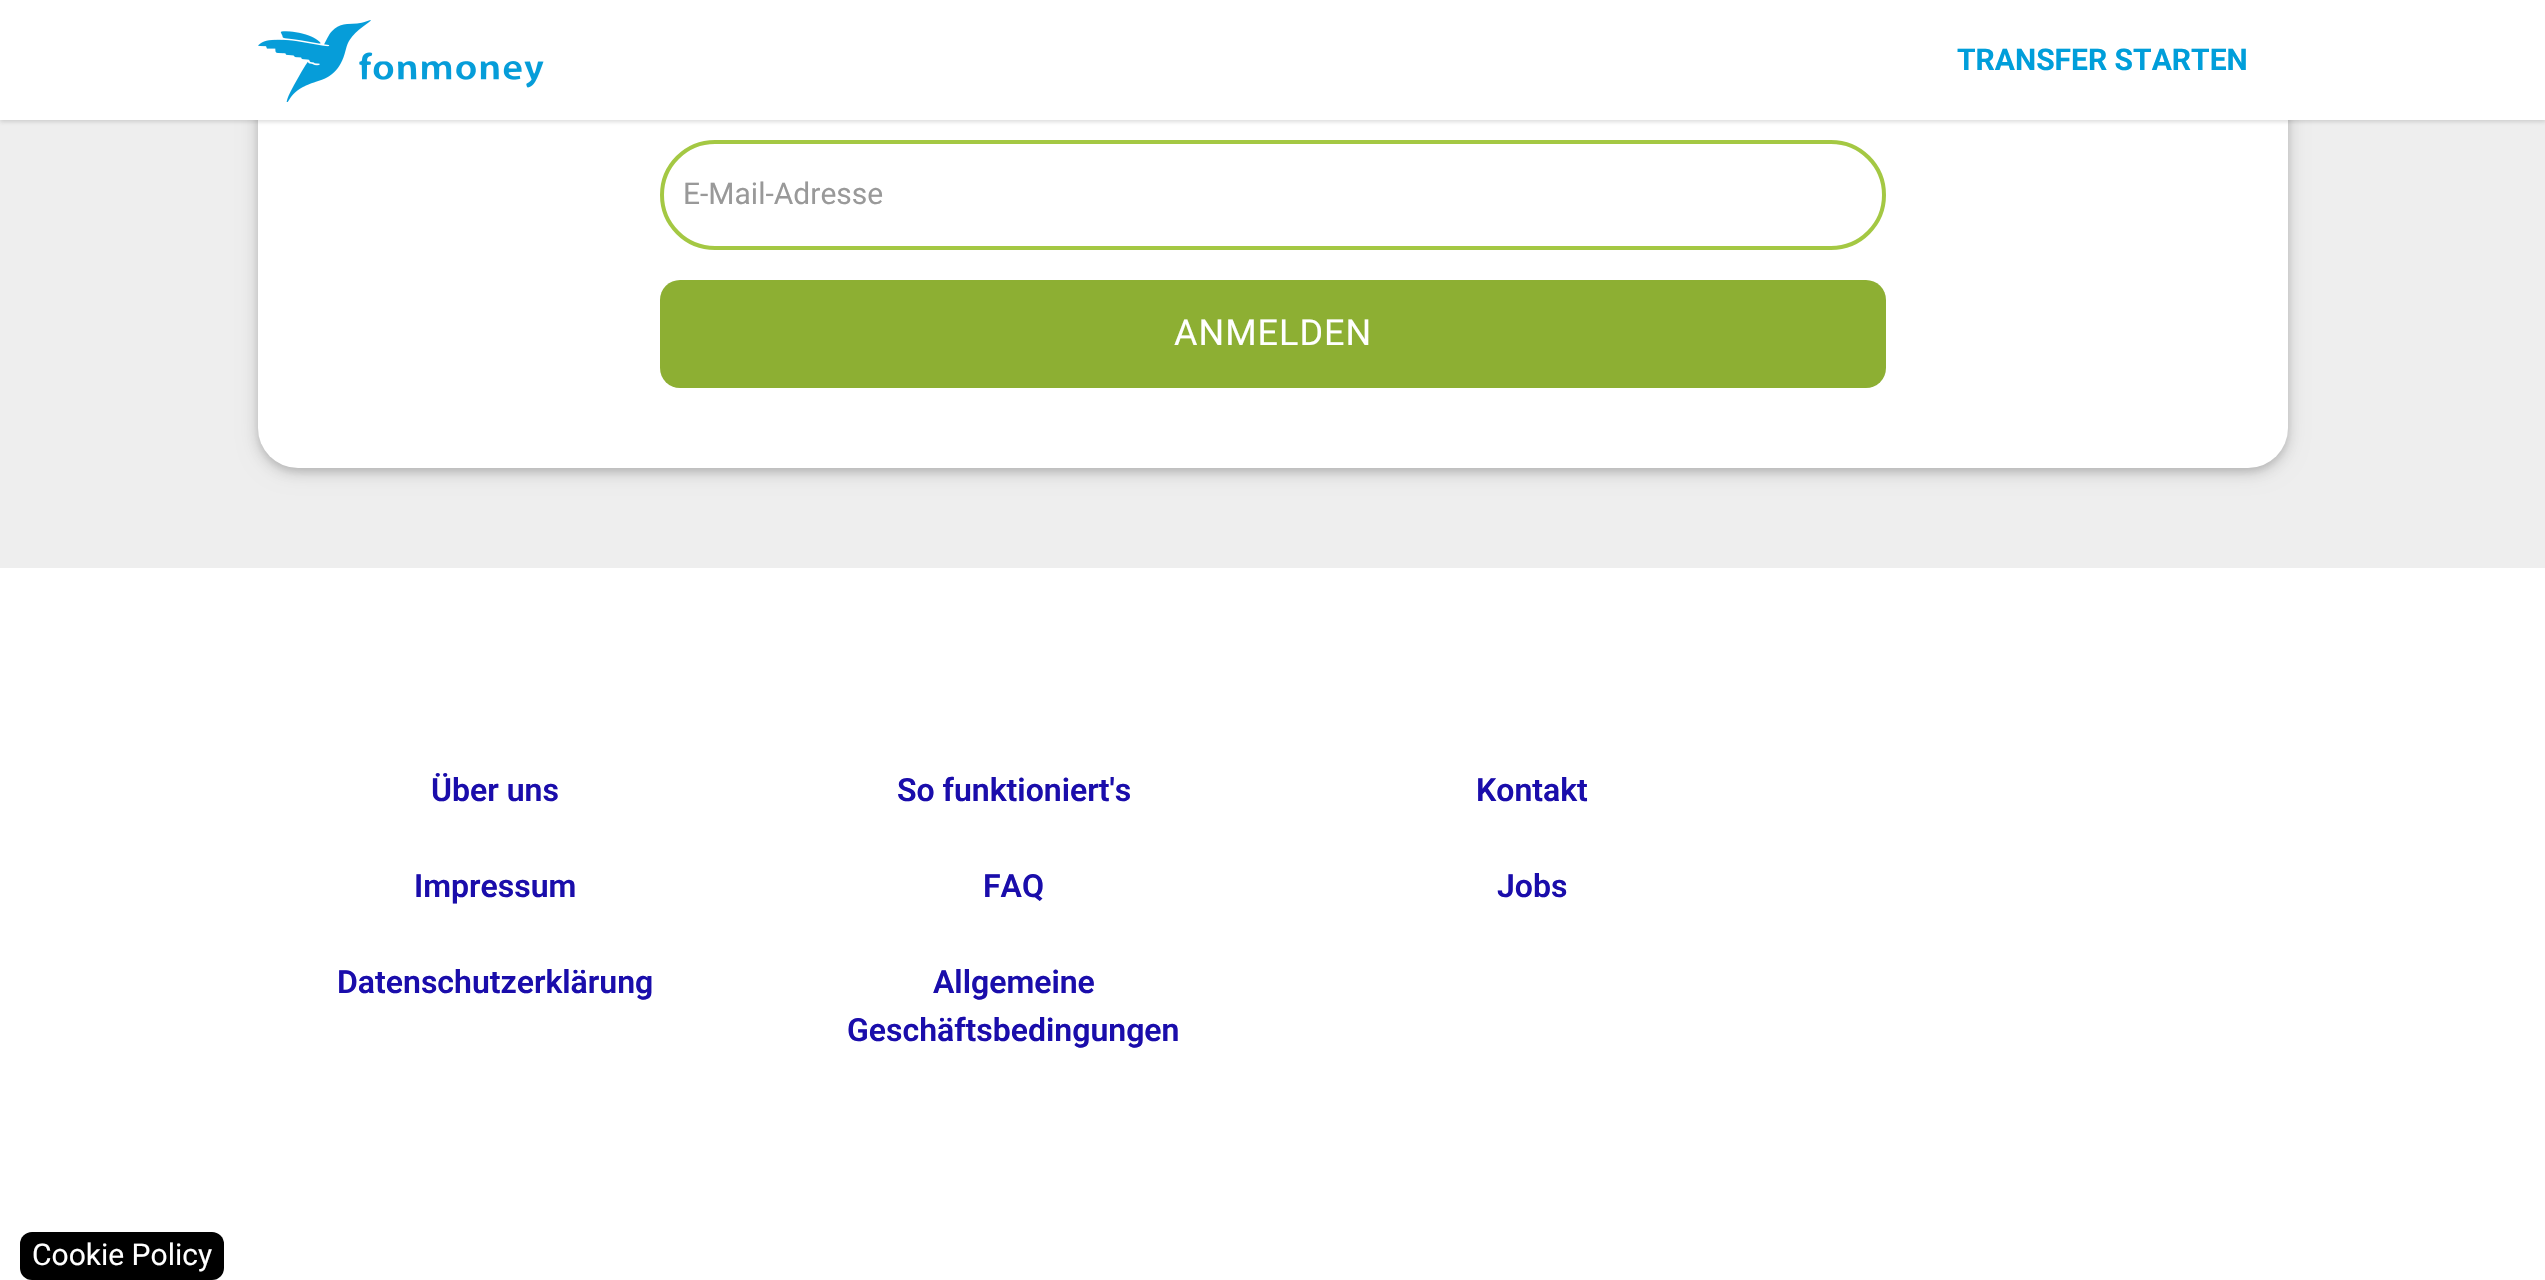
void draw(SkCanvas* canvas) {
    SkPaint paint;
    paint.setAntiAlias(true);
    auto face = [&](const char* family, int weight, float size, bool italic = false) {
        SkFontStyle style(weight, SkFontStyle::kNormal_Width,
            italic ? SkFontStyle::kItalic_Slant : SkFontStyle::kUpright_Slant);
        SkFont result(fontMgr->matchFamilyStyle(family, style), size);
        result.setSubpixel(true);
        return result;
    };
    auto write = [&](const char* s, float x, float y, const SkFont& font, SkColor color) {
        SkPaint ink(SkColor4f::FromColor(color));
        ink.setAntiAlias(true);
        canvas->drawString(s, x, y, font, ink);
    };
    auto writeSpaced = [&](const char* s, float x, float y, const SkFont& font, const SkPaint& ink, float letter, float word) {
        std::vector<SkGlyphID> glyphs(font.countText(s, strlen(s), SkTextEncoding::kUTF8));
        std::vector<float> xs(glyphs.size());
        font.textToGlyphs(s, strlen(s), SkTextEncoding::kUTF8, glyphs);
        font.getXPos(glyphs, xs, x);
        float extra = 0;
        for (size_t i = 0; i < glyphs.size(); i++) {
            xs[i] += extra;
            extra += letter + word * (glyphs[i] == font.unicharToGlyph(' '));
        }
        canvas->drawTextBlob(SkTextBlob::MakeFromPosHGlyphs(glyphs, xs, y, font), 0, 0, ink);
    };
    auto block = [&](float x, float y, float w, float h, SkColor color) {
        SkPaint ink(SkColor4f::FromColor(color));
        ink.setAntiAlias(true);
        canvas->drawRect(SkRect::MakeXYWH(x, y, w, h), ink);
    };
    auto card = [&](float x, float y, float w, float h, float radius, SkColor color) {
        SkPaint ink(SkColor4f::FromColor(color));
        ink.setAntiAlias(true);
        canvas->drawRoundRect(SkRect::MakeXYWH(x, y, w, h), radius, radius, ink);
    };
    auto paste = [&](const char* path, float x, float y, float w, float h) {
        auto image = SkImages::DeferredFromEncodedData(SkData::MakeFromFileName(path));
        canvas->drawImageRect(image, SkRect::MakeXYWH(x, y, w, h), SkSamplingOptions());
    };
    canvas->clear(SK_ColorWHITE);
    block(0, 120, 2545, 448, SkColorSetRGB(238, 238, 238));
    paint.setColor(SkColorSetARGB(31, 0, 0, 0));
    paint.setMaskFilter(SkMaskFilter::MakeBlur(kNormal_SkBlurStyle, 10));
    canvas->drawRoundRect(SkRect::MakeXYWH(258, -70, 2030, 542), 40, 40, paint);
    paint.setMaskFilter(nullptr);
    paint.setColor(SkColorSetARGB(41, 0, 0, 0));
    paint.setMaskFilter(SkMaskFilter::MakeBlur(kNormal_SkBlurStyle, 5));
    canvas->drawRoundRect(SkRect::MakeXYWH(258, -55, 2030, 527), 40, 40, paint);
    paint.setMaskFilter(nullptr);
    card(258, -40, 2030, 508, 40, SK_ColorWHITE);
    paint.setColor(SkColorSetARGB(43, 51, 51, 51));
    paint.setMaskFilter(SkMaskFilter::MakeBlur(kNormal_SkBlurStyle, 2));
    canvas->drawRect(SkRect::MakeXYWH(0, 2, 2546, 120), paint);
    paint.setMaskFilter(nullptr);
    block(0, 0, 2545, 120, SK_ColorWHITE);
    paste("pic1.png", 258, 20, 286, 82);
    auto kFont1 = face("Roboto", 700, 30);
    write("TRANSFER STARTEN", 1957, 70, kFont1, SkColorSetRGB(0, 158, 218));
    paint.setStyle(SkPaint::kStroke_Style);
    paint.setStrokeWidth(4);
    paint.setColor(SkColorSetRGB(164, 200, 67));
    canvas->drawRoundRect(SkRect::MakeXYWH(662, 142, 1222, 106), 53, 53, paint);
    auto kFont2 = face("Roboto", 400, 30);
    write("E-Mail-Adresse", 683, 204, kFont2, SkColorSetRGB(153, 153, 153));
    card(660, 280, 1226, 108, 20, SkColorSetRGB(141, 175, 51));
    auto kFont3 = face("Roboto", 400, 36);
    paint.setStyle(SkPaint::kFill_Style);
    paint.setColor(SK_ColorWHITE);
    writeSpaced("ANMELDEN", 1174, 345, kFont3, paint, 1, 0);
    auto kFont4 = face("Roboto", 600, 32);
    write("Über uns", 431, 801, kFont4, SkColorSetRGB(26, 13, 171));
    write("Impressum", 414, 897, kFont4, SkColorSetRGB(26, 13, 171));
    write("Datenschutzerklärung", 337, 993, kFont4, SkColorSetRGB(26, 13, 171));
    write("So funktioniert's", 897, 801, kFont4, SkColorSetRGB(26, 13, 171));
    write("FAQ", 983, 897, kFont4, SkColorSetRGB(26, 13, 171));
    write("Allgemeine", 933, 993, kFont4, SkColorSetRGB(26, 13, 171));
    write("Geschäftsbedingungen", 847, 1041, kFont4, SkColorSetRGB(26, 13, 171));
    write("Kontakt", 1476, 801, kFont4, SkColorSetRGB(26, 13, 171));
    write("Jobs", 1497, 897, kFont4, SkColorSetRGB(26, 13, 171));
    card(20, 1232, 204, 48, 12, SK_ColorBLACK);
    write("Cookie Policy", 32, 1265, kFont2, SK_ColorWHITE);
}
